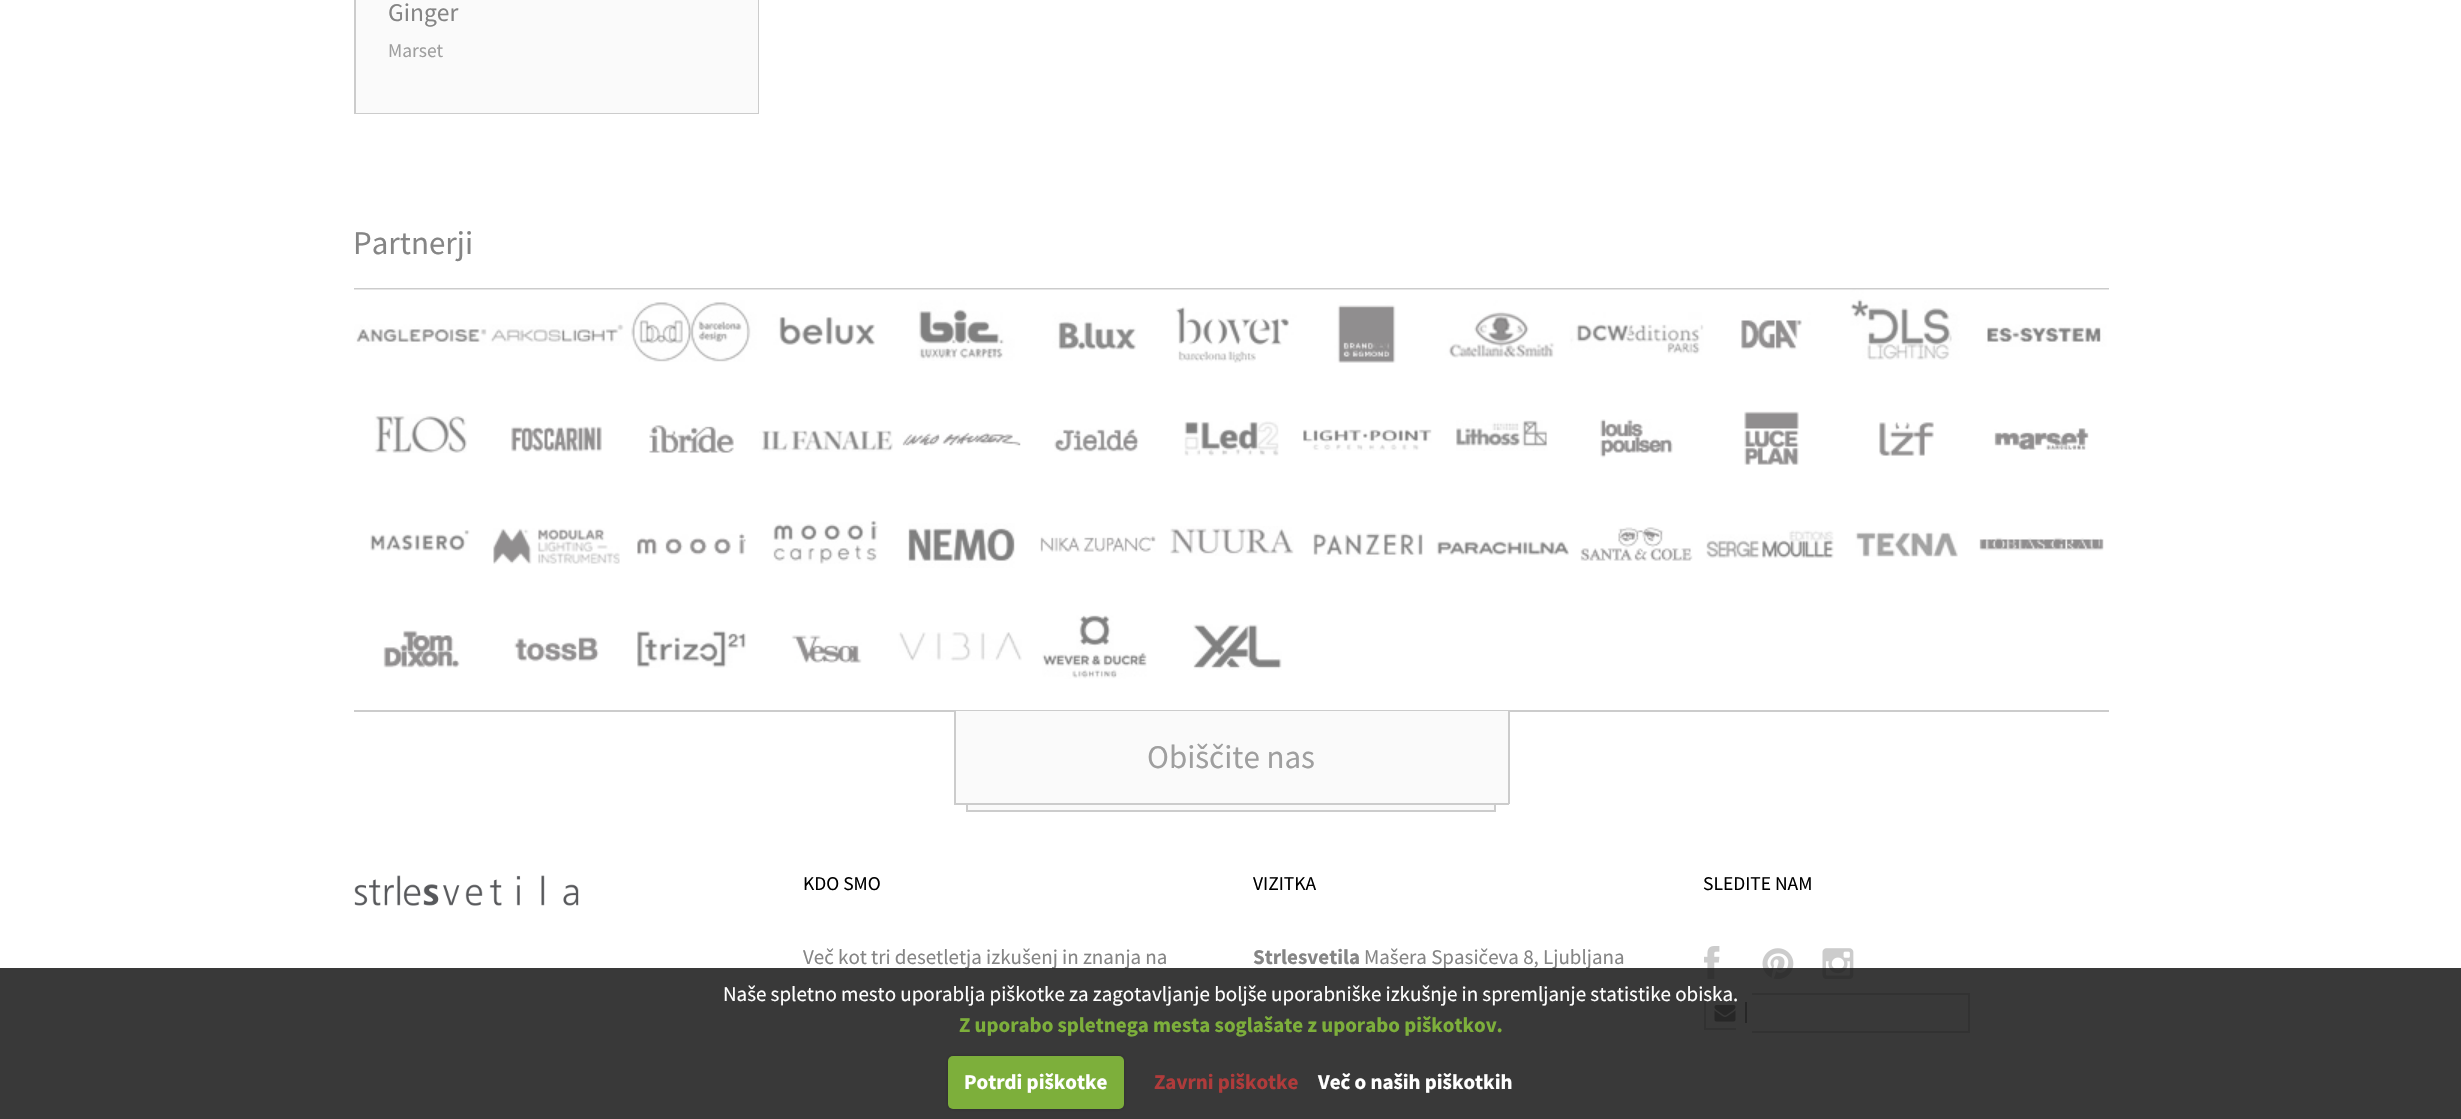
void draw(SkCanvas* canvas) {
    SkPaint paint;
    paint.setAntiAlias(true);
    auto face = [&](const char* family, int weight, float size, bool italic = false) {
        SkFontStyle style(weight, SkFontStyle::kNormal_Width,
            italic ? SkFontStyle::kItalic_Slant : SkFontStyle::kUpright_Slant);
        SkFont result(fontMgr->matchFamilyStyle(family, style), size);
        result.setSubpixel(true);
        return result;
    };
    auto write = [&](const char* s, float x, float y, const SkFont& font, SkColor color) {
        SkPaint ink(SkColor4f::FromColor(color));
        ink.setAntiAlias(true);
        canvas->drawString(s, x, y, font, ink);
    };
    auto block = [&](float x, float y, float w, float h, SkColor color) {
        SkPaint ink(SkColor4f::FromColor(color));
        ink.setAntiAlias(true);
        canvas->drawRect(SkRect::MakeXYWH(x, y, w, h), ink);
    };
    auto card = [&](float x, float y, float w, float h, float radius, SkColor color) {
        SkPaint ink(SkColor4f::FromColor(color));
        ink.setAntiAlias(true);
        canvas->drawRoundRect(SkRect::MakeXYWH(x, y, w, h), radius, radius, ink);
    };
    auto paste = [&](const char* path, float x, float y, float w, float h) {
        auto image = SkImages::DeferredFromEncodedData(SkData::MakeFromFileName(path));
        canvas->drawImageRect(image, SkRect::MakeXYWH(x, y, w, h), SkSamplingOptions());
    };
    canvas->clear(SK_ColorWHITE);
    block(356, 0, 402, 113, SkColorSetRGB(250, 250, 250));
    block(758, 0, 1, 114, SkColorSetRGB(204, 204, 204));
    block(354, 113, 405, 1, SkColorSetRGB(204, 204, 204));
    block(354, 0, 2, 114, SkColorSetRGB(204, 204, 204));
    auto kFont1 = face("Source Sans Pro", 400, 25.5f);
    write("Ginger", 388, 21, kFont1, SkColorSetRGB(133, 133, 133));
    auto kFont2 = face("Source Sans Pro", 400, 19.5f);
    write("Marset", 388, 57, kFont2, SkColorSetRGB(159, 159, 159));
    auto kFont3 = face("Source Sans Pro", 400, 33);
    write("Partnerji", 353, 254, kFont3, SkColorSetRGB(133, 133, 133));
    block(354, 288, 1755, 2, SkColorSetRGB(204, 204, 204));
    paste("pic1.png", 354, 289, 135, 57);
    paste("pic2.png", 489, 289, 135, 57);
    paste("pic3.png", 624, 289, 135, 73);
    paste("pic4.png", 759, 289, 135, 56);
    paste("pic5.png", 894, 289, 135, 72);
    paste("pic6.png", 1029, 289, 135, 61);
    paste("pic7.png", 1164, 289, 135, 74);
    paste("pic8.png", 1299, 289, 135, 74);
    paste("pic9.png", 1434, 289, 135, 69);
    paste("pic10.png", 1569, 289, 135, 66);
    paste("pic11.png", 1704, 289, 135, 61);
    paste("pic12.png", 1839, 289, 135, 71);
    paste("pic13.png", 1974, 289, 135, 58);
    paste("pic14.png", 374, 414, 93, 39);
    paste("pic15.png", 511, 426, 91, 26);
    paste("pic16.png", 649, 425, 85, 28);
    paste("pic17.png", 759, 430, 134, 22);
    paste("pic18.png", 902, 432, 119, 14);
    paste("pic19.png", 1054, 428, 85, 24);
    paste("pic20.png", 1184, 421, 95, 35);
    paste("pic21.png", 1303, 429, 129, 22);
    paste("pic22.png", 1456, 420, 92, 31);
    paste("pic23.png", 1600, 419, 73, 39);
    paste("pic24.png", 1744, 411, 55, 54);
    paste("pic25.png", 1879, 422, 55, 34);
    paste("pic26.png", 1994, 428, 95, 22);
    paste("pic27.png", 370, 530, 100, 21);
    paste("pic28.png", 493, 528, 127, 36);
    paste("pic29.png", 637, 533, 109, 22);
    paste("pic30.png", 773, 520, 105, 44);
    paste("pic31.png", 908, 523, 107, 45);
    paste("pic32.png", 1040, 536, 116, 16);
    paste("pic33.png", 1170, 526, 124, 30);
    paste("pic34.png", 1313, 533, 110, 24);
    paste("pic35.png", 1436, 540, 133, 16);
    paste("pic36.png", 1580, 527, 113, 34);
    paste("pic37.png", 1706, 530, 128, 29);
    paste("pic38.png", 1855, 531, 103, 26);
    paste("pic39.png", 1979, 537, 125, 14);
    paste("pic40.png", 383, 630, 77, 38);
    paste("pic41.png", 514, 636, 85, 26);
    paste("pic42.png", 637, 630, 109, 38);
    paste("pic43.png", 791, 635, 71, 28);
    paste("pic44.png", 898, 632, 124, 29);
    paste("pic45.png", 1042, 615, 105, 64);
    paste("pic46.png", 1193, 624, 89, 46);
    block(354, 710, 1755, 2, SkColorSetRGB(204, 204, 204));
    block(956, 711, 552, 92, SkColorSetRGB(250, 250, 250));
    block(1508, 711, 2, 93, SkColorSetRGB(204, 204, 204));
    block(966, 805, 530, 5, SkColorSetRGB(250, 250, 250));
    block(1494, 804, 2, 8, SkColorSetRGB(204, 204, 204));
    block(966, 810, 530, 2, SkColorSetRGB(204, 204, 204));
    block(966, 804, 2, 8, SkColorSetRGB(204, 204, 204));
    block(954, 803, 555, 2, SkColorSetRGB(204, 204, 204));
    block(954, 711, 2, 93, SkColorSetRGB(204, 204, 204));
    write("Obiščite nas", 1147, 768, kFont3, SkColorSetRGB(159, 159, 159));
    paste("pic47.png", 354, 875, 225, 31);
    write("KDO SMO", 803, 890, kFont2, SK_ColorBLACK);
    auto kFont4 = face("Source Sans Pro", 400, 21);
    write("Več kot tri desetletja izkušenj in znanja na", 803, 964, kFont4, SkColorSetRGB(133, 133, 133));
    write("VIZITKA", 1253, 890, kFont2, SK_ColorBLACK);
    auto kFont5 = face("Source Sans Pro", 700, 21);
    write("Strlesvetila", 1253, 964, kFont5, SkColorSetRGB(133, 133, 133));
    write("Mašera Spasičeva 8, Ljubljana", 1364, 964, kFont4, SkColorSetRGB(133, 133, 133));
    write("SLEDITE NAM", 1703, 890, kFont2, SK_ColorBLACK);
    paste("pic48.png", 1704, 946, 16, 33);
    paste("pic49.png", 1762, 948, 32, 31);
    paste("pic50.png", 1822, 948, 32, 31);
    block(1706, 998, 30, 30, SkColorSetRGB(250, 250, 250));
    block(1704, 996, 32, 2, SkColorSetRGB(204, 204, 204));
    block(1704, 1028, 32, 2, SkColorSetRGB(204, 204, 204));
    block(1704, 996, 2, 33, SkColorSetRGB(204, 204, 204));
    block(1752, 995, 216, 36, SkColorSetRGB(250, 250, 250));
    block(1752, 993, 218, 2, SkColorSetRGB(204, 204, 204));
    block(1968, 993, 2, 39, SkColorSetRGB(204, 204, 204));
    block(1752, 1031, 218, 2, SkColorSetRGB(204, 204, 204));
    block(1745, 1002, 2, 21, SkColorSetRGB(130, 130, 130));
    paste("pic51.png", 1714, 1005, 22, 17);
    block(0, 968, 2461, 151, SkColorSetARGB(217, 22, 22, 22));
    write("Naše spletno mesto uporablja piškotke za zagotavljanje boljše uporabniške izkušnje in spremljanje statistike obiska.", 723, 1001, kFont4, SK_ColorWHITE);
    write("Z uporabo spletnega mesta soglašate z uporabo piškotkov.", 959, 1032, kFont5, SkColorSetRGB(125, 175, 59));
    paint.setColor(SkColorSetARGB(64, 0, 0, 0));
    paint.setMaskFilter(SkMaskFilter::MakeBlur(kNormal_SkBlurStyle, 1.5f));
    canvas->drawRoundRect(SkRect::MakeXYWH(948, 1056, 176, 53), 5, 5, paint);
    paint.setMaskFilter(nullptr);
    card(948, 1056, 176, 53, 5, SkColorSetRGB(125, 175, 59));
    write("Potrdi piškotke", 964, 1089, kFont5, SK_ColorWHITE);
    write("Zavrni piškotke", 1154, 1089, kFont5, SkColorSetRGB(175, 59, 59));
    write("Več o naših piškotkih", 1318, 1089, kFont5, SK_ColorWHITE);
}
